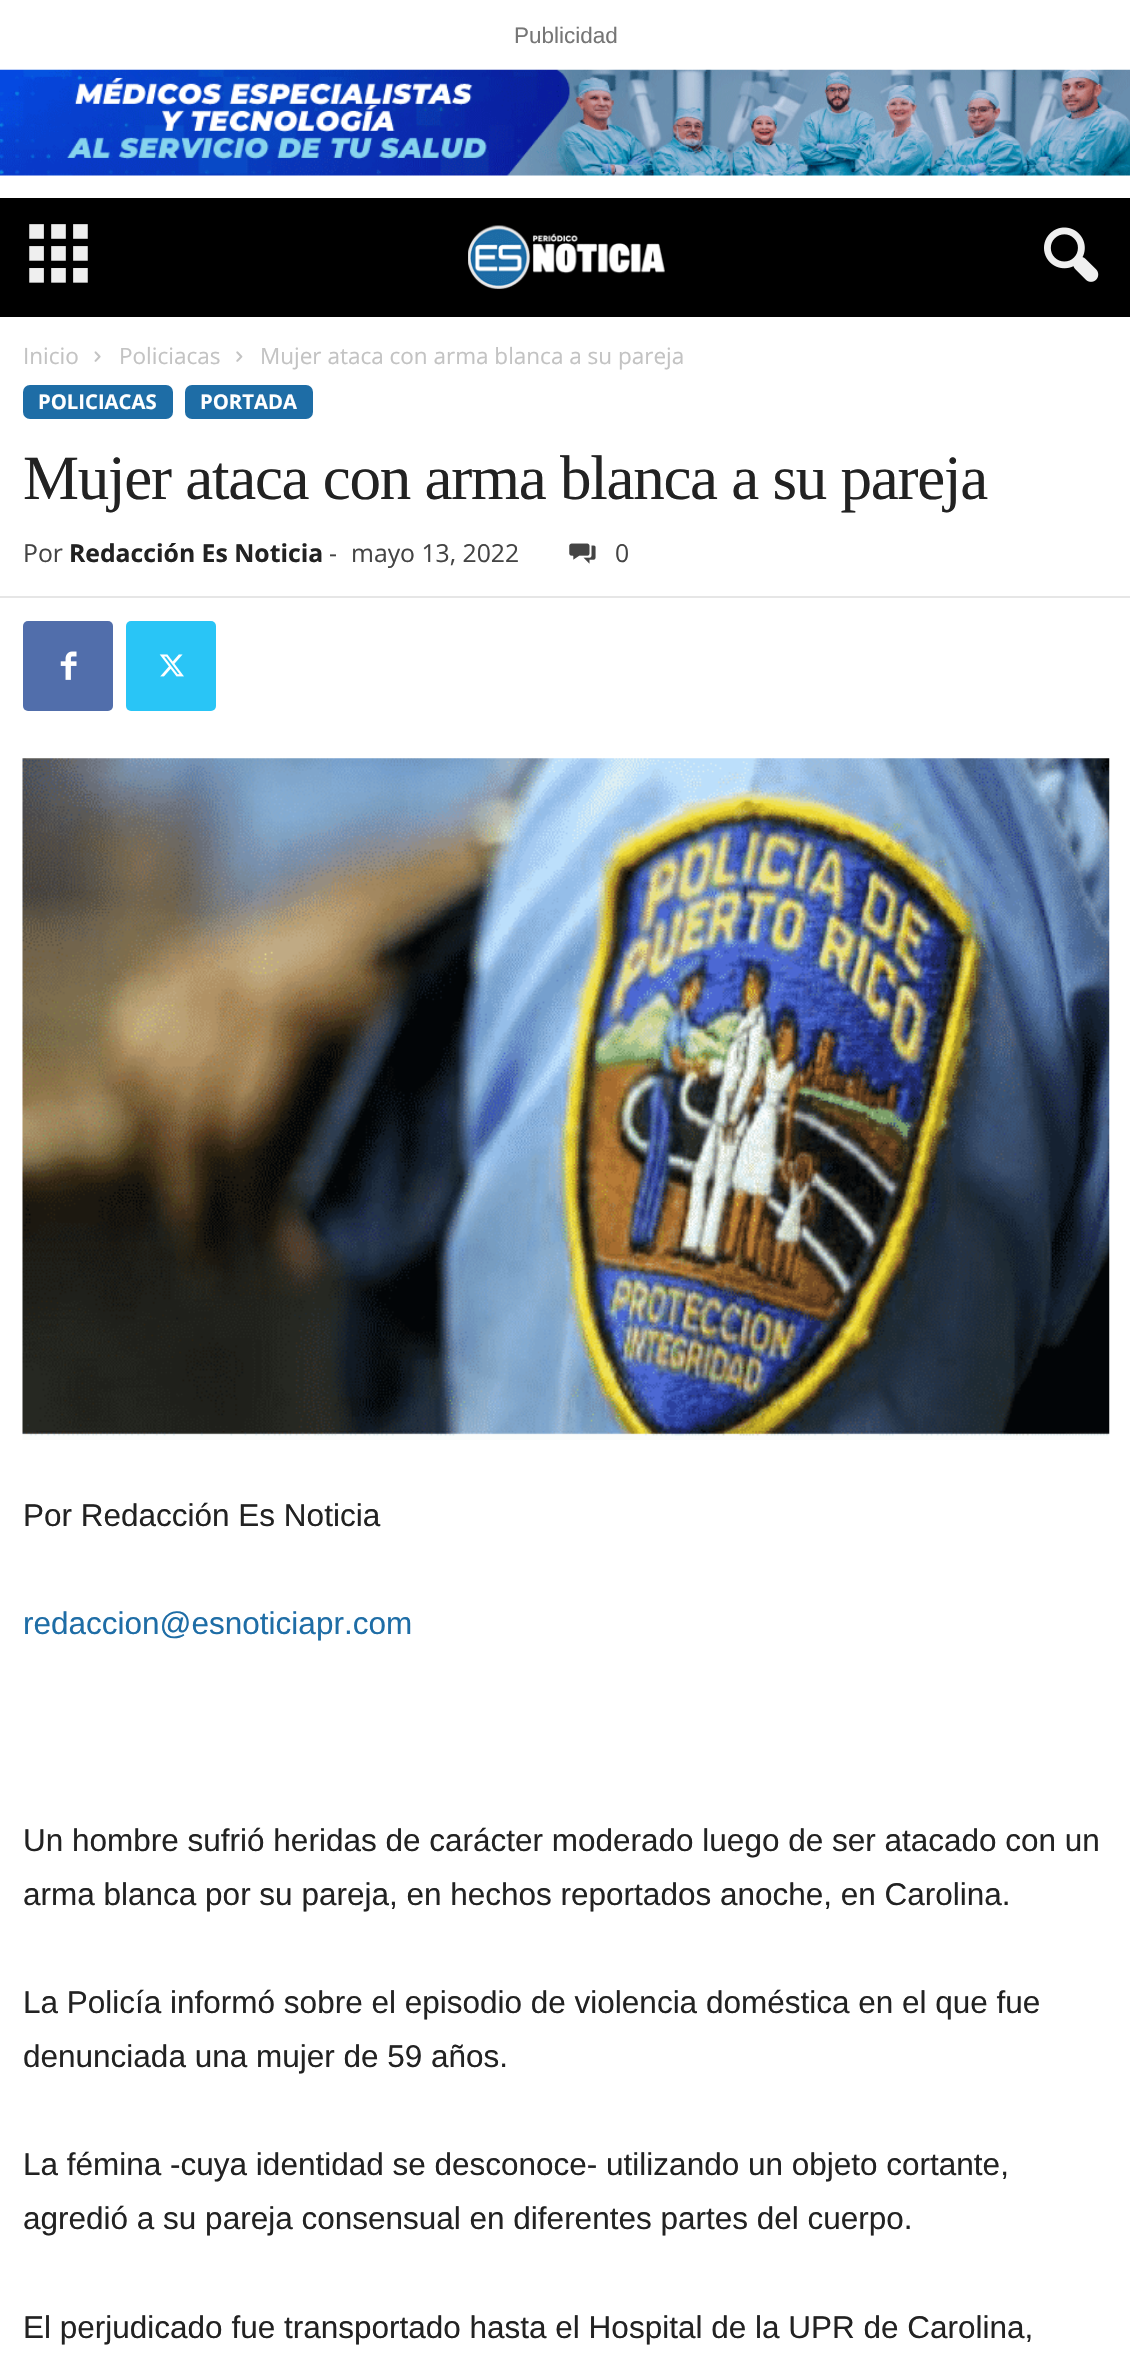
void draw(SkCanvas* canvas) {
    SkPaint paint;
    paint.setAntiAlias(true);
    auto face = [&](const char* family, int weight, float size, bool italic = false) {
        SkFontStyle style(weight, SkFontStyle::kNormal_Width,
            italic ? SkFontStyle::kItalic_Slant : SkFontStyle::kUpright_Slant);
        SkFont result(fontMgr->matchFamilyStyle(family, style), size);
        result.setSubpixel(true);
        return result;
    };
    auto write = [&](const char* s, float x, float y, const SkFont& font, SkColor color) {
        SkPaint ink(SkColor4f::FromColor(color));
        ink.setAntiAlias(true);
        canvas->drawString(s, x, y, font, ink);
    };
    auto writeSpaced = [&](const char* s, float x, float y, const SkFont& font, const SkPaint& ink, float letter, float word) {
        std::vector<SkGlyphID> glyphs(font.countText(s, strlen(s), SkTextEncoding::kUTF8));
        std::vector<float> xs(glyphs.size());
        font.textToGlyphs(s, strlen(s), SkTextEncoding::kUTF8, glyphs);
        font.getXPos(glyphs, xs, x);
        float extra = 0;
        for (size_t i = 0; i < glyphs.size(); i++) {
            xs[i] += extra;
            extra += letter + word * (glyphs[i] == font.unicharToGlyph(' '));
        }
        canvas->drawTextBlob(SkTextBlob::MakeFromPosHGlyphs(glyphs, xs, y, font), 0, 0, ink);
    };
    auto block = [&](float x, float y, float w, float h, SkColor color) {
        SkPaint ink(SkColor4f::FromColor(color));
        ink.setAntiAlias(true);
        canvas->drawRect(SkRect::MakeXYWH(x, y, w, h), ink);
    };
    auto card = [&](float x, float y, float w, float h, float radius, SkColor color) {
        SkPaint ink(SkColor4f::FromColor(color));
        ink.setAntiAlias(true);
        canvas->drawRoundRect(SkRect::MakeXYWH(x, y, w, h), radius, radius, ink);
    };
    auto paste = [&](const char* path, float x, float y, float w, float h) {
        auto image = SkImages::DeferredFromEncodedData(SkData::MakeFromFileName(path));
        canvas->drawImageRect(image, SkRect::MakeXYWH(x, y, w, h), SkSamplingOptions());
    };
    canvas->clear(SK_ColorWHITE);
    auto kFont1 = face("Liberation Sans", 400, 22.5f);
    write("Publicidad", 514, 43, kFont1, SkColorSetRGB(118, 118, 118));
    paste("pic1.png", 0, 69, 1130, 107);
    block(0, 198, 1130, 119, SK_ColorBLACK);
    paste("pic2.png", 29, 224, 59, 59);
    paste("pic3.png", 468, 225, 197, 64);
    paste("pic4.png", 1044, 227, 55, 55);
    auto kFont2 = face("Open Sans", 400, 22.5f);
    write("Inicio", 23, 364, kFont2, SkColorSetRGB(195, 195, 195));
    paste("pic5.png", 94, 351, 7, 11);
    write("Policiacas", 119, 364, kFont2, SkColorSetRGB(195, 195, 195));
    paste("pic6.png", 236, 351, 7, 11);
    write("Mujer ataca con arma blanca a su pareja", 260, 364, kFont2, SkColorSetRGB(195, 195, 195));
    card(23, 385, 150, 34, 7, SkColorSetRGB(30, 109, 166));
    auto kFont3 = face("Open Sans", 700, 20.25f);
    write("POLICIACAS", 38, 409, kFont3, SK_ColorWHITE);
    card(185, 385, 128, 34, 7, SkColorSetRGB(30, 109, 166));
    write("PORTADA", 200, 409, kFont3, SK_ColorWHITE);
    auto kFont4 = face("Liberation Serif", 400, 63);
    paint.setColor(SkColorSetRGB(34, 34, 34));
    writeSpaced("Mujer ataca con arma blanca a su pareja", 23, 499, kFont4, paint, -1.25f, 0);
    auto kFont5 = face("Open Sans", 400, 24.75f);
    write("Por", 23, 562, kFont5, SkColorSetRGB(68, 68, 68));
    auto kFont6 = face("Open Sans", 700, 24.75f);
    write("Redacción Es Noticia", 69, 562, kFont6, SkColorSetRGB(34, 34, 34));
    write("-", 329, 562, kFont5, SkColorSetRGB(68, 68, 68));
    write("mayo 13, 2022", 351, 562, kFont5, SkColorSetRGB(68, 68, 68));
    paste("pic7.png", 569, 543, 27, 21);
    write("0", 615, 562, kFont5, SkColorSetRGB(68, 68, 68));
    block(0, 596, 1130, 2, SkColorSetRGB(230, 230, 230));
    card(23, 621, 90, 90, 5, SkColorSetRGB(81, 110, 171));
    paste("pic8.png", 60, 651, 17, 29);
    card(126, 621, 90, 90, 5, SkColorSetRGB(41, 197, 246));
    paste("pic9.png", 159, 654, 25, 23);
    paste("pic10.png", 22, 758, 1088, 682);
    auto kFont7 = face("Liberation Sans", 400, 31.5f);
    write("Por Redacción Es Noticia", 23, 1526, kFont7, SkColorSetRGB(34, 34, 34));
    write("redaccion@esnoticiapr.com", 23, 1634, kFont7, SkColorSetRGB(30, 109, 166));
    write("Un hombre sufrió heridas de carácter moderado luego de ser atacado con un", 23, 1851, kFont7, SkColorSetRGB(34, 34, 34));
    write("arma blanca por su pareja, en hechos reportados anoche, en Carolina.", 23, 1905, kFont7, SkColorSetRGB(34, 34, 34));
    write("La Policía informó sobre el episodio de violencia doméstica en el que fue", 23, 2013, kFont7, SkColorSetRGB(34, 34, 34));
    write("denunciada una mujer de 59 años.", 23, 2067, kFont7, SkColorSetRGB(34, 34, 34));
    write("La fémina -cuya identidad se desconoce- utilizando un objeto cortante,", 23, 2175, kFont7, SkColorSetRGB(34, 34, 34));
    write("agredió a su pareja consensual en diferentes partes del cuerpo.", 23, 2229, kFont7, SkColorSetRGB(34, 34, 34));
    write("El perjudicado fue transportado hasta el Hospital de la UPR de Carolina,", 23, 2338, kFont7, SkColorSetRGB(34, 34, 34));
}
